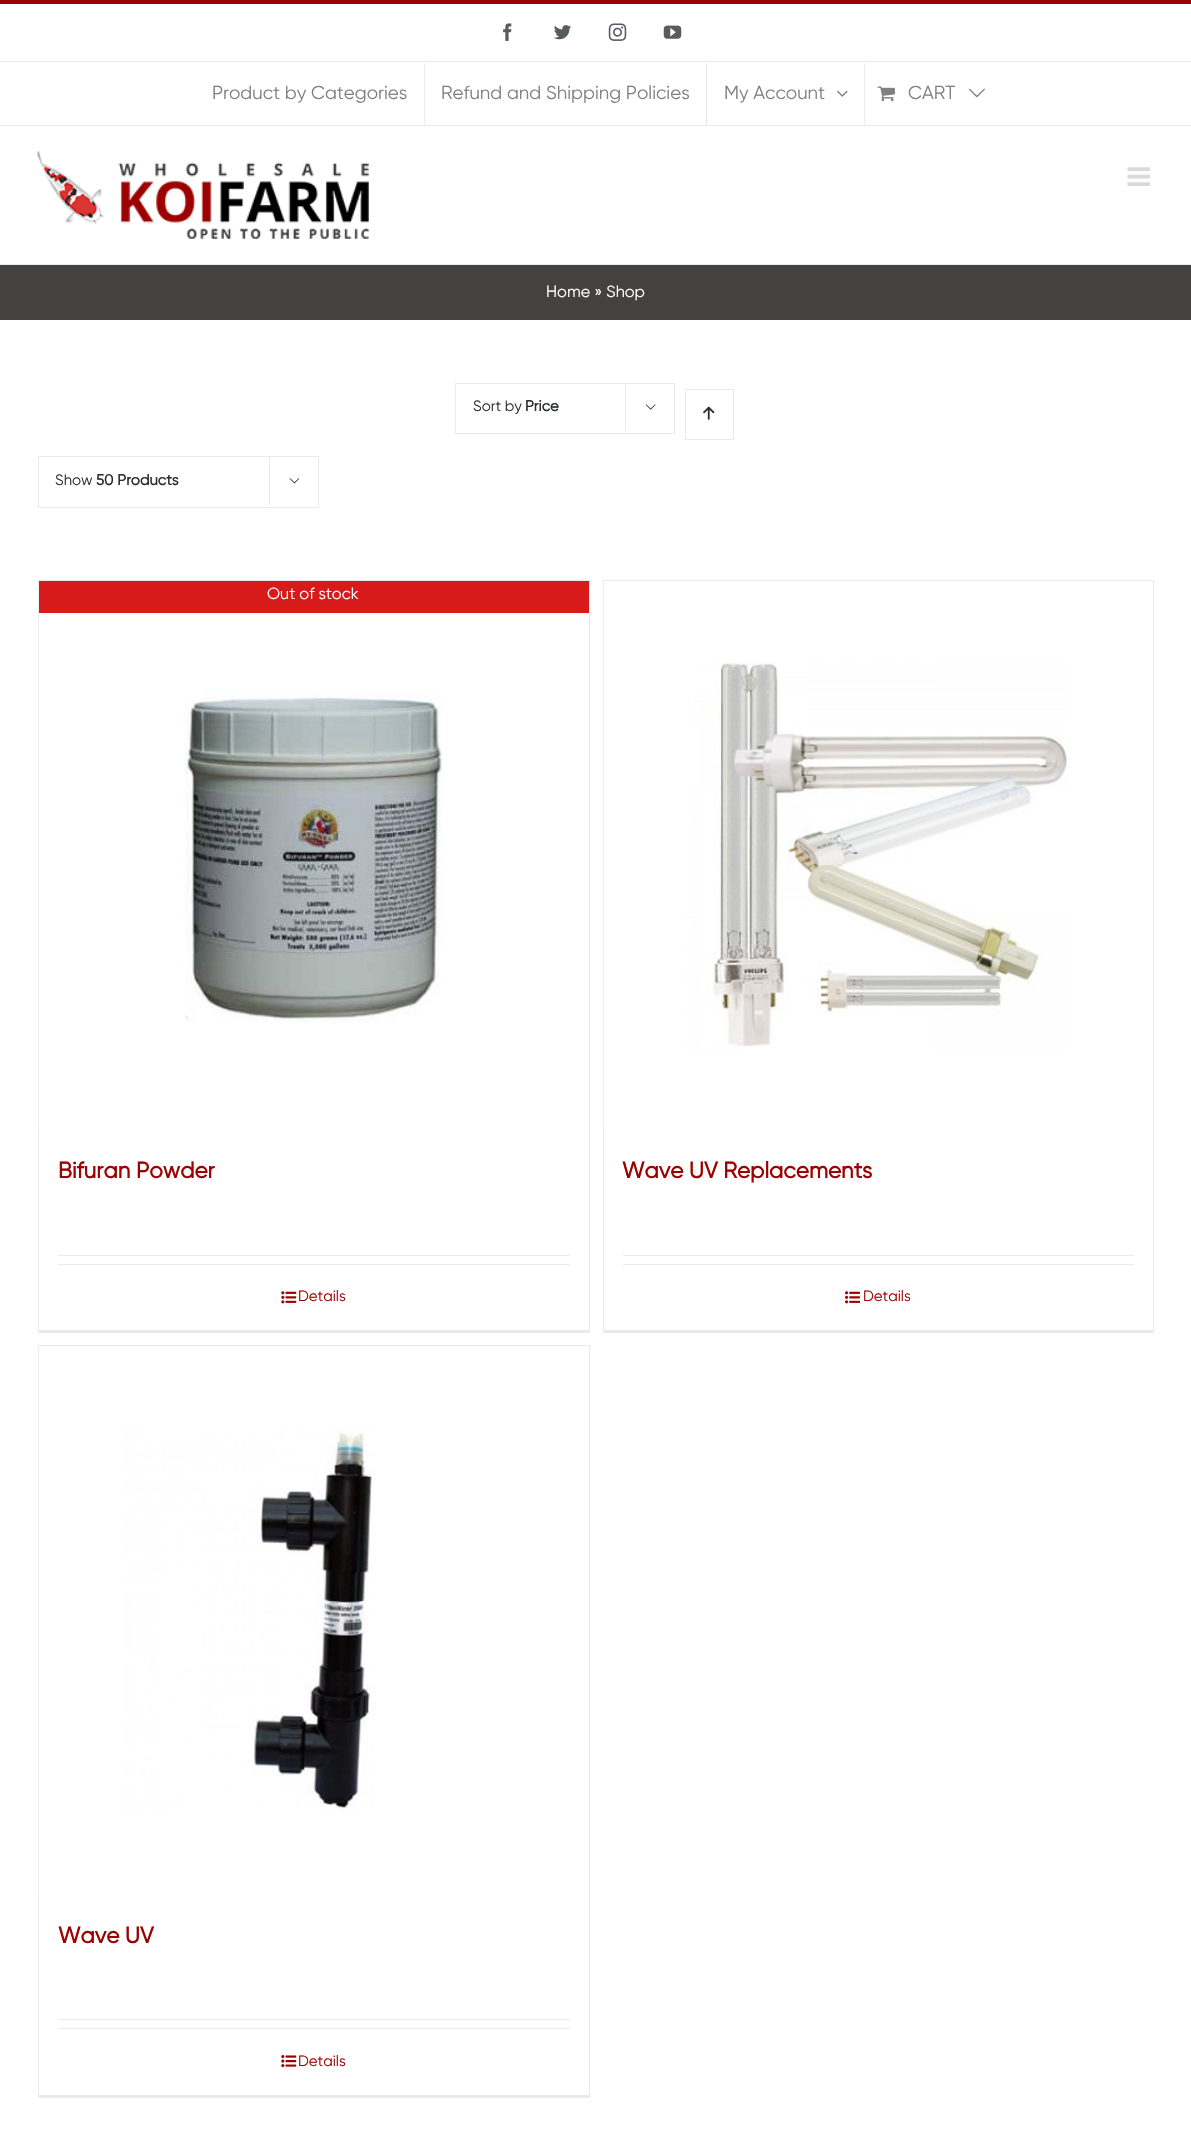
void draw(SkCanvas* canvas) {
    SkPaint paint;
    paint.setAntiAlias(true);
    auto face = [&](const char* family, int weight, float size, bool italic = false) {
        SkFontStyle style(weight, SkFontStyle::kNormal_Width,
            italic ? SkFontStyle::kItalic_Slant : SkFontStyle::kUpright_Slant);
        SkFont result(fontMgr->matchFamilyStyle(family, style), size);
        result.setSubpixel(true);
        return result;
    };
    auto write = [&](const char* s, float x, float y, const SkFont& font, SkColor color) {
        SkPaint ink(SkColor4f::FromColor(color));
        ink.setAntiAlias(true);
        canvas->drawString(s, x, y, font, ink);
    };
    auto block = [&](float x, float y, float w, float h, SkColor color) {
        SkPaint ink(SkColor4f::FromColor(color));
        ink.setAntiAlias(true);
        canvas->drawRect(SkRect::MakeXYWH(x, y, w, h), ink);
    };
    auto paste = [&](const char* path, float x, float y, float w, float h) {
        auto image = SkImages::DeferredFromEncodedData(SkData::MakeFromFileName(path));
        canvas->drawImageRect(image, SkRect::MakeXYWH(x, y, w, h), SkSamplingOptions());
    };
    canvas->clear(SK_ColorWHITE);
    block(0, 0, 1191, 4, SkColorSetRGB(157, 2, 2));
    block(0, 125, 1191, 1, SkColorSetRGB(234, 234, 234));
    block(0, 61, 1191, 1, SkColorSetRGB(234, 234, 234));
    paste("pic1.png", 503, 23, 9, 18);
    paste("pic2.png", 554, 25, 18, 15);
    paste("pic3.png", 608, 23, 19, 18);
    paste("pic4.png", 663, 25, 19, 14);
    auto kFont1 = face("Gilroy", 400, 18.75f);
    write("Product by Categories", 212, 99, kFont1, SkColorSetRGB(128, 128, 128));
    block(424, 63, 1, 62, SkColorSetRGB(234, 234, 234));
    write("Refund and Shipping Policies", 441, 99, kFont1, SkColorSetRGB(128, 128, 128));
    block(706, 63, 1, 62, SkColorSetRGB(234, 234, 234));
    write("My Account", 724, 99, kFont1, SkColorSetRGB(128, 128, 128));
    paste("pic5.png", 837, 90, 11, 7);
    block(864, 63, 1, 62, SkColorSetRGB(234, 234, 234));
    paste("pic6.png", 877, 86, 18, 16);
    write("CART", 908, 99, kFont1, SkColorSetRGB(128, 128, 128));
    paste("pic7.png", 968, 88, 17, 10);
    block(0, 264, 1191, 1, SkColorSetRGB(234, 234, 234));
    paste("pic8.png", 37, 151, 332, 88);
    paste("pic9.png", 1127, 167, 23, 19);
    block(0, 265, 1191, 55, SkColorSetRGB(68, 65, 65));
    auto kFont2 = face("Gilroy", 400, 16.25f);
    write("Home » Shop", 546, 297, kFont2, SK_ColorWHITE);
    paint.setStyle(SkPaint::kStroke_Style);
    paint.setStrokeWidth(1);
    paint.setColor(SkColorSetRGB(234, 234, 234));
    canvas->drawRect(SkRect::MakeXYWH(455.5f, 383.5f, 219, 50), paint);
    auto kFont3 = face("Gilroy", 400, 15);
    write("Sort by", 473, 411, kFont3, SkColorSetRGB(43, 46, 50));
    auto kFont4 = face("Gilroy", 700, 15);
    write("Price", 525, 411, kFont4, SkColorSetRGB(43, 46, 50));
    block(625, 383, 1, 48, SkColorSetRGB(234, 234, 234));
    paste("pic10.png", 645, 404, 11, 6);
    canvas->drawRect(SkRect::MakeXYWH(685.5f, 389.5f, 48, 50), paint);
    paste("pic11.png", 703, 406, 12, 14);
    canvas->drawRect(SkRect::MakeXYWH(38.5f, 456.5f, 280, 51), paint);
    write("Show", 55, 485, kFont3, SkColorSetRGB(43, 46, 50));
    write("50 Products", 96, 485, kFont4, SkColorSetRGB(43, 46, 50));
    block(269, 456, 1, 49, SkColorSetRGB(234, 234, 234));
    paste("pic12.png", 289, 478, 11, 6);
    block(38, 580, 552, 1, SkColorSetRGB(234, 234, 234));
    block(589, 580, 1, 753, SkColorSetRGB(234, 234, 234));
    block(38, 1330, 552, 3, SkColorSetRGB(234, 234, 234));
    block(38, 580, 1, 753, SkColorSetRGB(234, 234, 234));
    paste("pic13.png", 38, 582, 405, 549);
    block(39, 581, 550, 32, SkColorSetRGB(215, 26, 26));
    write("Out of stock", 267, 599, kFont2, SK_ColorWHITE);
    auto kFont5 = face("Gilroy", 700, 22.5f);
    write("Bifuran Powder", 58, 1178, kFont5, SkColorSetRGB(157, 2, 2));
    block(58, 1255, 512, 1, SkColorSetRGB(234, 234, 234));
    block(58, 1264, 512, 1, SkColorSetRGB(234, 234, 234));
    paste("pic14.png", 281, 1291, 16, 13);
    write("Details", 298, 1301, kFont3, SkColorSetRGB(157, 2, 2));
    block(603, 580, 551, 1, SkColorSetRGB(234, 234, 234));
    block(1153, 580, 1, 753, SkColorSetRGB(234, 234, 234));
    block(603, 1330, 551, 3, SkColorSetRGB(234, 234, 234));
    block(603, 580, 1, 753, SkColorSetRGB(234, 234, 234));
    paste("pic15.png", 603, 582, 465, 549);
    write("Wave UV Replacements", 622, 1178, kFont5, SkColorSetRGB(157, 2, 2));
    block(623, 1255, 511, 1, SkColorSetRGB(234, 234, 234));
    block(623, 1264, 511, 1, SkColorSetRGB(234, 234, 234));
    paste("pic16.png", 845, 1291, 15, 13);
    write("Details", 863, 1301, kFont3, SkColorSetRGB(157, 2, 2));
    block(38, 1345, 552, 1, SkColorSetRGB(234, 234, 234));
    block(589, 1345, 1, 753, SkColorSetRGB(234, 234, 234));
    block(38, 2095, 552, 3, SkColorSetRGB(234, 234, 234));
    block(38, 1345, 1, 753, SkColorSetRGB(234, 234, 234));
    paste("pic17.png", 38, 1347, 338, 548);
    write("Wave UV", 58, 1943, kFont5, SkColorSetRGB(157, 2, 2));
    block(58, 2019, 512, 1, SkColorSetRGB(234, 234, 234));
    block(58, 2028, 512, 1, SkColorSetRGB(234, 234, 234));
    paste("pic18.png", 281, 2055, 16, 13);
    write("Details", 298, 2066, kFont3, SkColorSetRGB(157, 2, 2));
}
